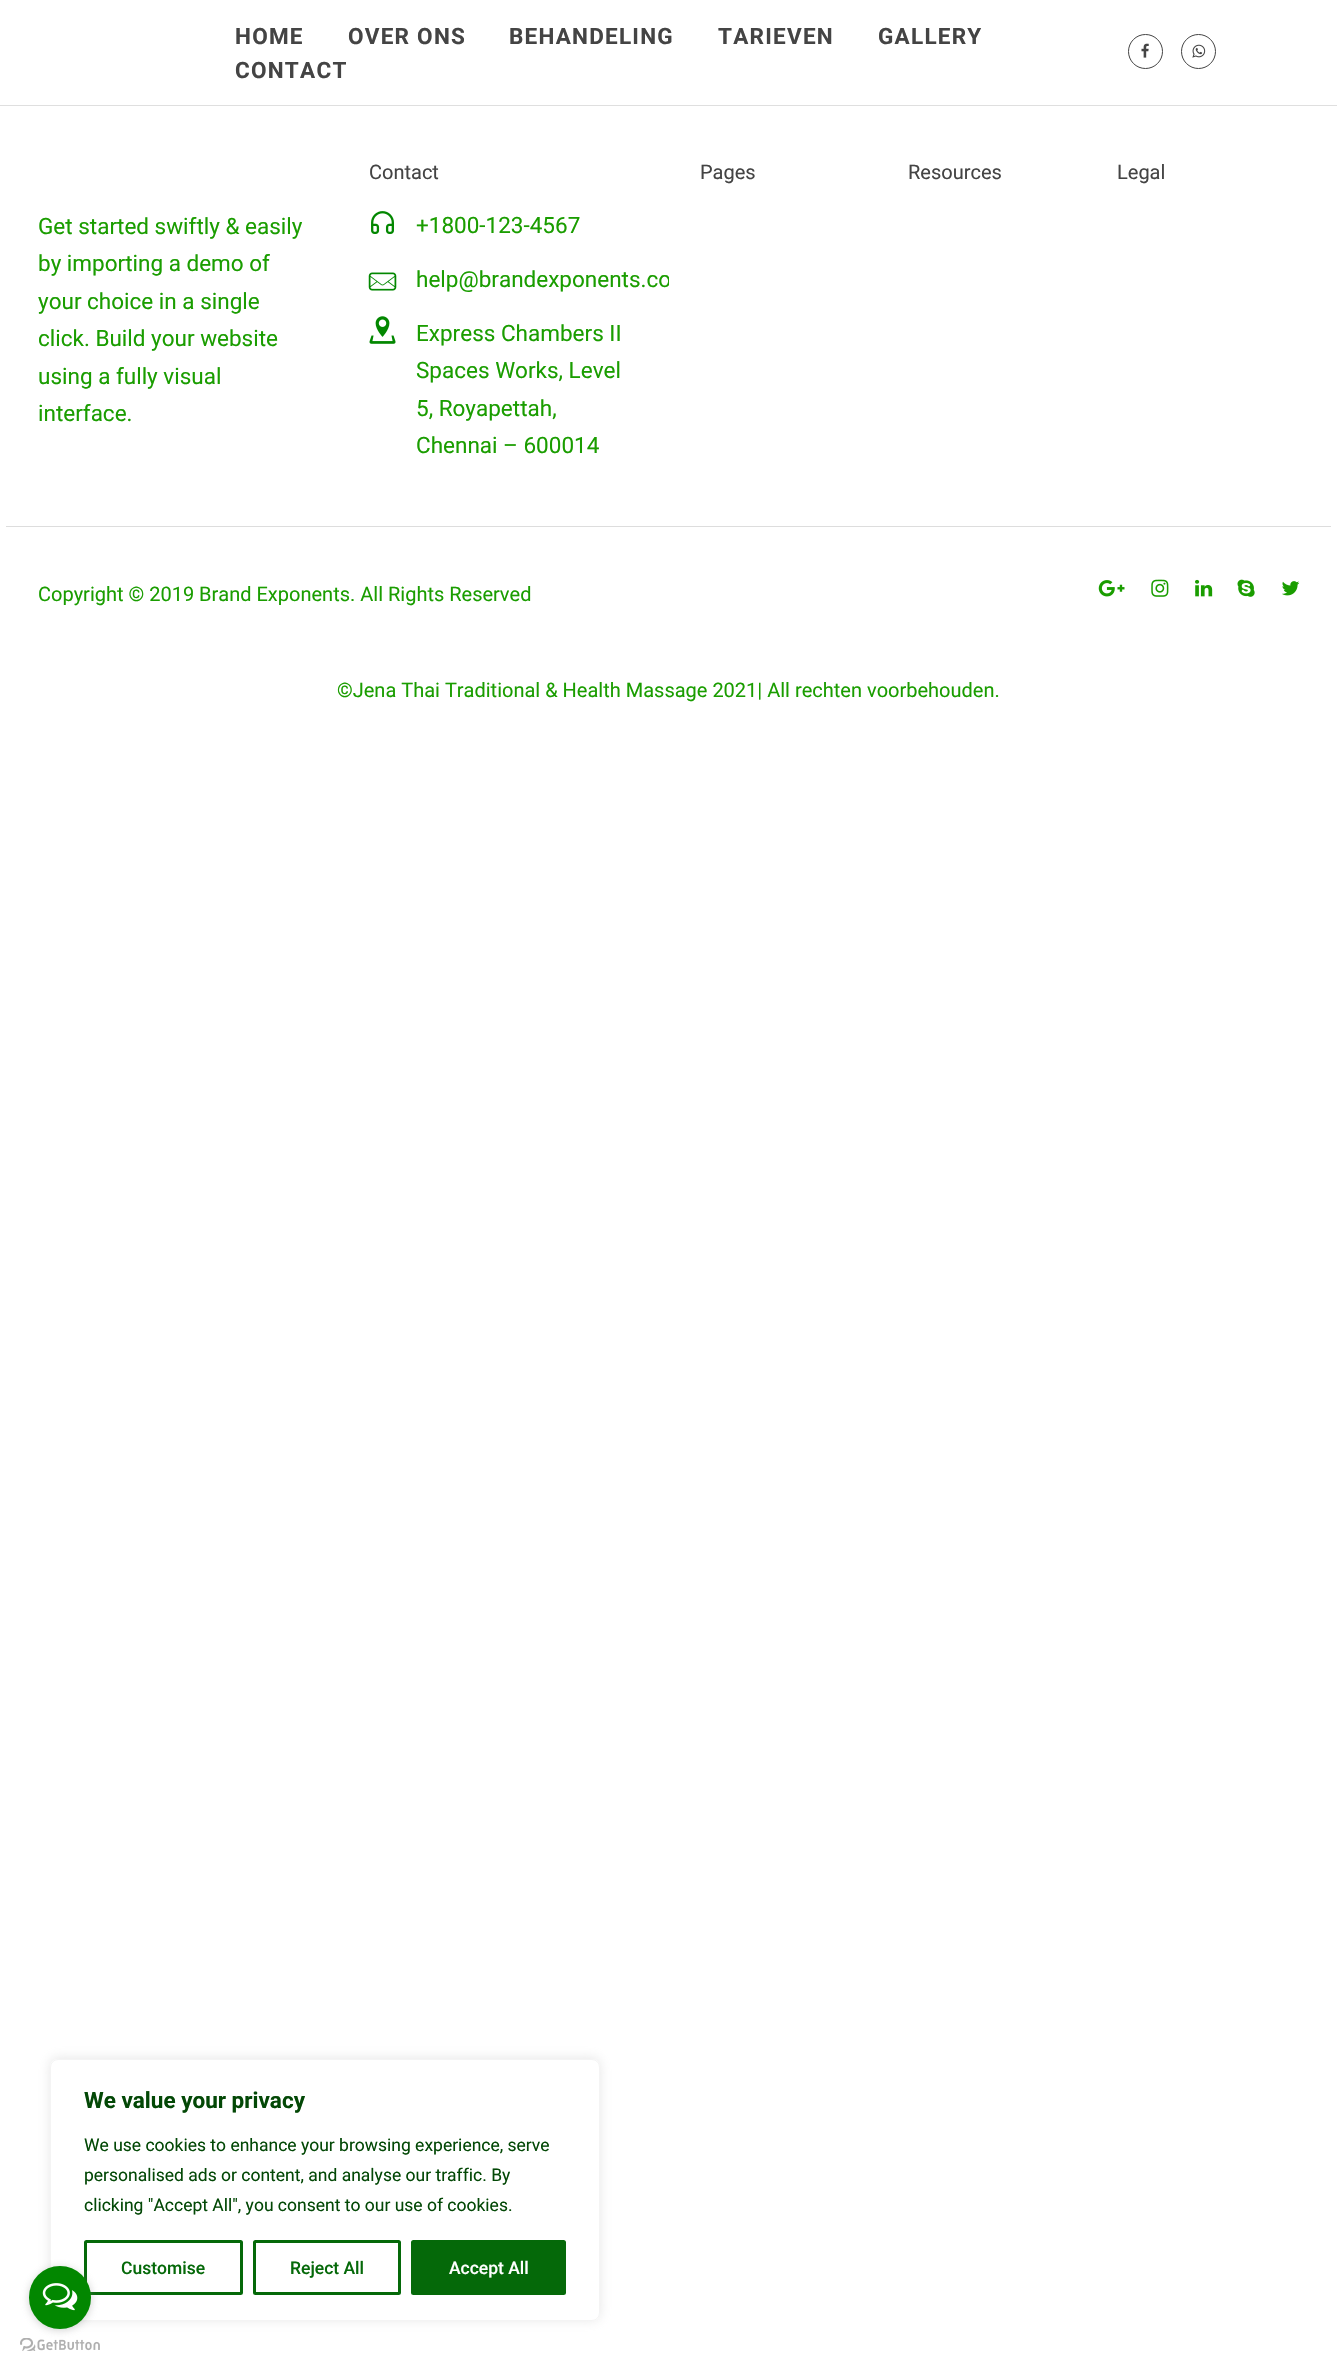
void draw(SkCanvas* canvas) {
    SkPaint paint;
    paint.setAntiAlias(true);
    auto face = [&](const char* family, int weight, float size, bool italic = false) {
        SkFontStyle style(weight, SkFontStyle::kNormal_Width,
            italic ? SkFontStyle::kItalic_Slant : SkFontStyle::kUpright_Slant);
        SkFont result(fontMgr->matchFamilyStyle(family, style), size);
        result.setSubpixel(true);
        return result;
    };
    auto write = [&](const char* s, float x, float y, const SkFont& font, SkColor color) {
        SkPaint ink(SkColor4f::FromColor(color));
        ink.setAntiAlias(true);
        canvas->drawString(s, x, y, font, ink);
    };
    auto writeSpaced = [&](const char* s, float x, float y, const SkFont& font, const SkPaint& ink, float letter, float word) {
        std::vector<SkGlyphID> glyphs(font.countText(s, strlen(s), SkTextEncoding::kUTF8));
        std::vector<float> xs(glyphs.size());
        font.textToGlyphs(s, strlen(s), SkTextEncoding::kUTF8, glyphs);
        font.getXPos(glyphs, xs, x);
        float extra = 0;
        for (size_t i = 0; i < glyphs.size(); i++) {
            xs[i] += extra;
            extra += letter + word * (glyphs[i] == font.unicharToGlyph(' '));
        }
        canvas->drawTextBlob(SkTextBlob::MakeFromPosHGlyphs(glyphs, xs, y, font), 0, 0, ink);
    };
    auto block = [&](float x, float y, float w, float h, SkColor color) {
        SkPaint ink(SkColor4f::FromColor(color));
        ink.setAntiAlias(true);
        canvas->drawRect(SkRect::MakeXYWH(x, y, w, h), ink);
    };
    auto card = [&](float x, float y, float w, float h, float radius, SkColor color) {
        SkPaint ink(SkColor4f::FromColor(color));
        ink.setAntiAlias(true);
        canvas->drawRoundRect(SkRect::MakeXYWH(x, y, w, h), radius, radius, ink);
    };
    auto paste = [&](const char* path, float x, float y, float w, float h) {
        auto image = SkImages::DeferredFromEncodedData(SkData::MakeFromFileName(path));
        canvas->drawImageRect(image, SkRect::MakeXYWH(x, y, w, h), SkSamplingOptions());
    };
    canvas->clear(SK_ColorWHITE);
    auto kFont1 = face("Roboto", 700, 22.5f);
    paint.setColor(SkColorSetRGB(68, 68, 68));
    writeSpaced("HOME", 235, 44, kFont1, paint, 1.25f, 0);
    writeSpaced("OVER ONS", 348, 44, kFont1, paint, 1.25f, 0);
    writeSpaced("BEHANDELING", 509, 44, kFont1, paint, 1.25f, 0);
    writeSpaced("TARIEVEN", 718, 44, kFont1, paint, 1.25f, 0);
    writeSpaced("GALLERY", 878, 44, kFont1, paint, 1.25f, 0);
    writeSpaced("CONTACT", 235, 78, kFont1, paint, 1.25f, 0);
    paint.setStyle(SkPaint::kStroke_Style);
    paint.setStrokeWidth(1);
    canvas->drawCircle(1145.5f, 51.5f, 17, paint);
    paste("pic1.png", 1141, 43, 8, 15);
    canvas->drawCircle(1198.5f, 51.5f, 17, paint);
    paste("pic2.png", 1192, 44, 14, 14);
    block(0, 105, 1337, 1, SkColorSetRGB(223, 223, 223));
    block(6, 526, 1325, 1, SkColorSetRGB(221, 221, 221));
    auto kFont2 = face("Roboto", 400, 20);
    write("Contact", 369, 179, kFont2, SkColorSetRGB(68, 68, 68));
    paste("pic3.png", 371, 211, 23, 23);
    auto kFont3 = face("Roboto", 400, 22.5f);
    write("+1800-123-4567", 416, 233, kFont3, SkColorSetRGB(26, 157, 0));
    paste("pic4.png", 368, 272, 29, 19);
    canvas->save();
    canvas->clipRect(SkRect::MakeXYWH(338, 156, 331, 309));
    write("help@brandexponents.co", 416, 287, kFont3, SkColorSetRGB(26, 157, 0));
    canvas->restore();
    paste("pic5.png", 369, 316, 27, 28);
    write("Express Chambers II", 416, 341, kFont3, SkColorSetRGB(26, 157, 0));
    write("Spaces Works, Level", 416, 378, kFont3, SkColorSetRGB(26, 157, 0));
    write("5, Royapettah,", 416, 416, kFont3, SkColorSetRGB(26, 157, 0));
    write("Chennai – 600014", 416, 453, kFont3, SkColorSetRGB(26, 157, 0));
    write("Pages", 700, 179, kFont2, SkColorSetRGB(68, 68, 68));
    write("Resources", 908, 179, kFont2, SkColorSetRGB(68, 68, 68));
    write("Legal", 1117, 179, kFont2, SkColorSetRGB(68, 68, 68));
    write("Get started swiftly & easily", 38, 234, kFont3, SkColorSetRGB(26, 157, 0));
    write("by importing a demo of", 38, 271, kFont3, SkColorSetRGB(26, 157, 0));
    write("your choice in a single", 38, 309, kFont3, SkColorSetRGB(26, 157, 0));
    write("click. Build your website", 38, 346, kFont3, SkColorSetRGB(26, 157, 0));
    write("using a fully visual", 38, 384, kFont3, SkColorSetRGB(26, 157, 0));
    write("interface.", 38, 421, kFont3, SkColorSetRGB(26, 157, 0));
    write("Copyright © 2019 Brand Exponents. All Rights Reserved", 38, 601, kFont2, SkColorSetRGB(26, 157, 0));
    paste("pic6.png", 1098, 580, 27, 17);
    paste("pic7.png", 1151, 579, 18, 18);
    paste("pic8.png", 1195, 579, 18, 18);
    paste("pic9.png", 1237, 579, 18, 18);
    paste("pic10.png", 1282, 581, 18, 15);
    write("©Jena Thai Traditional & Health Massage 2021| All rechten voorbehouden.", 337, 697, kFont2, SkColorSetRGB(26, 157, 0));
    canvas->save();
    canvas->clipPath(SkPathBuilder(SkPathFillType::kEvenOdd).moveTo(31, 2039).lineTo(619, 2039).lineTo(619, 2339).lineTo(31, 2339).close().moveTo(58, 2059).lineTo(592, 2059).cubicTo(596.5f, 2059, 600, 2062.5f, 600, 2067).lineTo(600, 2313).cubicTo(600, 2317.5f, 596.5f, 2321, 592, 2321).lineTo(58, 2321).cubicTo(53.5f, 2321, 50, 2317.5f, 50, 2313).lineTo(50, 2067).cubicTo(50, 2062.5f, 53.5f, 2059, 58, 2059).close().detach(), true);
    paint.setStyle(SkPaint::kFill_Style);
    paint.setColor(SkColorSetARGB(77, 172, 171, 171));
    paint.setMaskFilter(SkMaskFilter::MakeBlur(kNormal_SkBlurStyle, 6));
    canvas->drawRoundRect(SkRect::MakeXYWH(50, 2058, 550, 262), 8, 8, paint);
    paint.setMaskFilter(nullptr);
    canvas->restore();
    paint.setStyle(SkPaint::kStroke_Style);
    paint.setColor(SkColorSetRGB(244, 244, 244));
    canvas->drawRoundRect(SkRect::MakeXYWH(50.5f, 2059.5f, 549, 261), 7.5f, 7.5f, paint);
    write("We value your privacy", 84, 2108, kFont1, SkColorSetRGB(3, 72, 6));
    auto kFont4 = face("Roboto", 400, 17.5f);
    write("We use cookies to enhance your browsing experience, serve", 84, 2151, kFont4, SkColorSetRGB(3, 72, 6));
    write("personalised ads or content, and analyse our traffic. By", 84, 2181, kFont4, SkColorSetRGB(3, 72, 6));
    write("clicking \"Accept All\", you consent to our use of cookies.", 84, 2211, kFont4, SkColorSetRGB(3, 72, 6));
    paint.setStrokeWidth(3);
    paint.setColor(SkColorSetRGB(5, 105, 9));
    canvas->drawRoundRect(SkRect::MakeXYWH(85.5f, 2241.5f, 156, 52), 1, 1, paint);
    auto kFont5 = face("Roboto", 500, 17.5f);
    write("Customise", 121, 2274, kFont5, SkColorSetRGB(5, 105, 9));
    canvas->drawRoundRect(SkRect::MakeXYWH(254.5f, 2241.5f, 145, 52), 1, 1, paint);
    write("Reject All", 290, 2274, kFont5, SkColorSetRGB(5, 105, 9));
    paint.setStyle(SkPaint::kFill_Style);
    canvas->drawRoundRect(SkRect::MakeXYWH(412.5f, 2241.5f, 152, 52), 1, 1, paint);
    paint.setStyle(SkPaint::kStroke_Style);
    canvas->drawRoundRect(SkRect::MakeXYWH(412.5f, 2241.5f, 152, 52), 1, 1, paint);
    write("Accept All", 449, 2274, kFont5, SK_ColorWHITE);
    paste("pic12.png", 20, 2338, 80, 13);
    paint.setStyle(SkPaint::kFill_Style);
    paint.setColor(SkColorSetARGB(102, 136, 136, 136));
    paint.setMaskFilter(SkMaskFilter::MakeBlur(kNormal_SkBlurStyle, 4.5f));
    canvas->drawRoundRect(SkRect::MakeXYWH(29, 2268, 62, 62), 31, 31, paint);
    paint.setMaskFilter(nullptr);
    card(29, 2266, 62, 63, 31, SkColorSetRGB(2, 135, 0));
    paste("pic11.png", 42, 2283, 36, 28);
}
